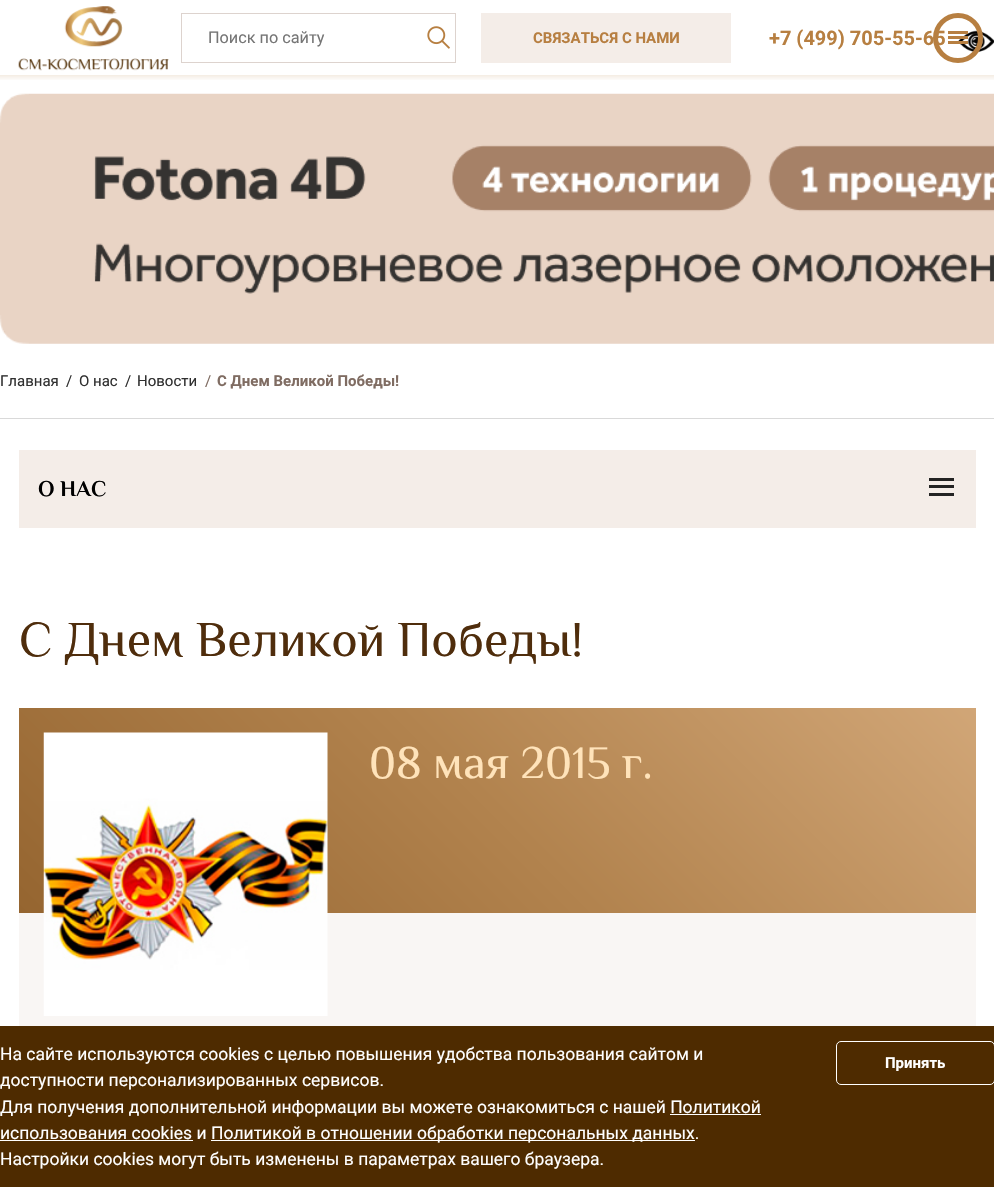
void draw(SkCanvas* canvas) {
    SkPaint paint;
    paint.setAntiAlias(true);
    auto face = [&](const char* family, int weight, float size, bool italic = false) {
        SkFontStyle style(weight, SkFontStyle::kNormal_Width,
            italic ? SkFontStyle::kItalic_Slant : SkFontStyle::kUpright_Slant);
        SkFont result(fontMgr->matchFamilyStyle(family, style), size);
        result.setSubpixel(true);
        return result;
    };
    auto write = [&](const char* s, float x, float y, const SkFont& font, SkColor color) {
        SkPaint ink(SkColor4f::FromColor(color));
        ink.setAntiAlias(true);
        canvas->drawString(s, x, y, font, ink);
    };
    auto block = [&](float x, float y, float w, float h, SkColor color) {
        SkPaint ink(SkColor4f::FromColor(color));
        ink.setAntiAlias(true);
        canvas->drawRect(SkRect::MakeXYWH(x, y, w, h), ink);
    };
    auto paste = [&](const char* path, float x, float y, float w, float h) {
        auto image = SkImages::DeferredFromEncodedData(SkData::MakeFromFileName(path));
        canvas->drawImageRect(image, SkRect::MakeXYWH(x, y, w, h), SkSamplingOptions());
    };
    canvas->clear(SK_ColorWHITE);
    paste("pic1.png", 18, 6, 151, 65);
    paint.setStyle(SkPaint::kStroke_Style);
    paint.setStrokeWidth(1);
    paint.setColor(SkColorSetRGB(221, 211, 206));
    canvas->drawRect(SkRect::MakeXYWH(181.5f, 13.5f, 274, 49), paint);
    auto kFont1 = face("Roboto", 400, 16.25f);
    write("Поиск по сайту", 208, 43, kFont1, SkColorSetRGB(117, 117, 117));
    paste("pic2.png", 427, 26, 23, 23);
    block(481, 13, 250, 50, SkColorSetRGB(244, 237, 232));
    auto kFont2 = face("Roboto", 700, 15);
    write("СВЯЗАТЬСЯ С НАМИ", 533, 43, kFont2, SkColorSetRGB(183, 127, 65));
    auto kFont3 = face("Roboto", 700, 20);
    write("+7 (499) 705-55-65", 769, 45, kFont3, SkColorSetRGB(183, 127, 65));
    paste("pic3.png", 958, 30, 36, 22);
    paint.setStrokeWidth(5);
    paint.setColor(SkColorSetRGB(183, 127, 65));
    canvas->drawCircle(958, 38, 22.5f, paint);
    block(948, 36, 20, 3, SkColorSetRGB(183, 127, 65));
    block(948, 31, 20, 3, SkColorSetRGB(183, 127, 65));
    block(948, 41, 20, 3, SkColorSetRGB(183, 127, 65));
    paint.setStyle(SkPaint::kFill_Style);
    {
        const SkColor colors[] = {SK_ColorWHITE, SkColorSetRGB(244, 236, 227)};
        const float stops[] = {0, 1};
        const SkPoint ends[] = {{498, 81}, {498, 75}};
        paint.setShader(SkGradientShader::MakeLinear(ends, colors, stops, 2, SkTileMode::kClamp));
        paint.setAlpha(255);
    }
    canvas->drawRect(SkRect::MakeXYWH(0, 75, 994, 5), paint);
    paste("pic4.png", 0, 93, 994, 251);
    block(0, 418, 994, 1, SkColorSetRGB(217, 217, 217));
    auto kFont4 = face("Roboto", 400, 15);
    write("Главная", 0, 386, kFont4, SkColorSetRGB(48, 48, 48));
    write("/", 66, 386, kFont4, SkColorSetRGB(48, 48, 48));
    write("О нас", 79, 386, kFont4, SkColorSetRGB(48, 48, 48));
    write("/", 125, 386, kFont4, SkColorSetRGB(48, 48, 48));
    write("Новости", 137, 386, kFont4, SkColorSetRGB(48, 48, 48));
    write("/", 205, 386, kFont4, SkColorSetRGB(127, 108, 98));
    write("С Днем Великой Победы!", 217, 386, kFont2, SkColorSetRGB(127, 108, 98));
    block(19, 450, 957, 78, SkColorSetRGB(244, 237, 232));
    auto kFont5 = face("El Messiri", 700, 22.5f);
    write("О НАС", 38, 496, kFont5, SK_ColorBLACK);
    block(929, 485, 25, 3, SkColorSetRGB(35, 35, 35));
    block(929, 478, 25, 3, SkColorSetRGB(35, 35, 35));
    block(929, 493, 25, 3, SkColorSetRGB(35, 35, 35));
    auto kFont6 = face("El Messiri", 400, 50);
    write("С Днем Великой Победы!", 19, 656, kFont6, SkColorSetRGB(79, 45, 12));
    block(19, 913, 957, 113, SkColorSetRGB(249, 246, 244));
    {
        const SkColor colors[] = {SkColorSetRGB(209, 166, 119), SkColorSetRGB(178, 131, 78), SkColorSetRGB(149, 101, 48)};
        const float stops[] = {0, 0.5f, 1};
        const SkPoint ends[] = {{788, 519}, {207, 1101}};
        paint.setShader(SkGradientShader::MakeLinear(ends, colors, stops, 3, SkTileMode::kClamp));
        paint.setAlpha(255);
    }
    canvas->drawRect(SkRect::MakeXYWH(19, 708, 957, 205), paint);
    paste("pic5.png", 43, 732, 285, 284);
    auto kFont7 = face("El Messiri", 400, 46.25f);
    write("08 мая 2015 г.", 369, 778, kFont7, SkColorSetRGB(255, 227, 186));
    block(0, 1026, 994, 161, SkColorSetRGB(78, 43, 0));
    auto kFont8 = face("Roboto", 400, 17.5f);
    write("На сайте используются cookies с целью повышения удобства пользования сайтом и", 0, 1060, kFont8, SK_ColorWHITE);
    write("доступности персонализированных сервисов.", 0, 1086, kFont8, SK_ColorWHITE);
    write("Для получения дополнительной информации вы можете ознакомиться с нашей Политикой", 0, 1113, kFont8, SK_ColorWHITE);
    write("использования cookies и", 0, 1139, kFont8, SK_ColorWHITE);
    block(670, 1114, 91, 1, SK_ColorWHITE);
    block(0, 1140, 193, 1, SK_ColorWHITE);
    block(211, 1140, 484, 1, SK_ColorWHITE);
    write("Политикой в отношении обработки персональных данных.", 211, 1139, kFont8, SK_ColorWHITE);
    write("Настройки cookies могут быть изменены в параметрах вашего браузера.", 0, 1165, kFont8, SK_ColorWHITE);
    paint.setStyle(SkPaint::kStroke_Style);
    paint.setStrokeWidth(1);
    paint.setShader(nullptr);
    paint.setColor(SK_ColorWHITE);
    canvas->drawRoundRect(SkRect::MakeXYWH(836.5f, 1041.5f, 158, 43), 4.5f, 4.5f, paint);
    write("Принять", 885, 1068, kFont2, SK_ColorWHITE);
}
